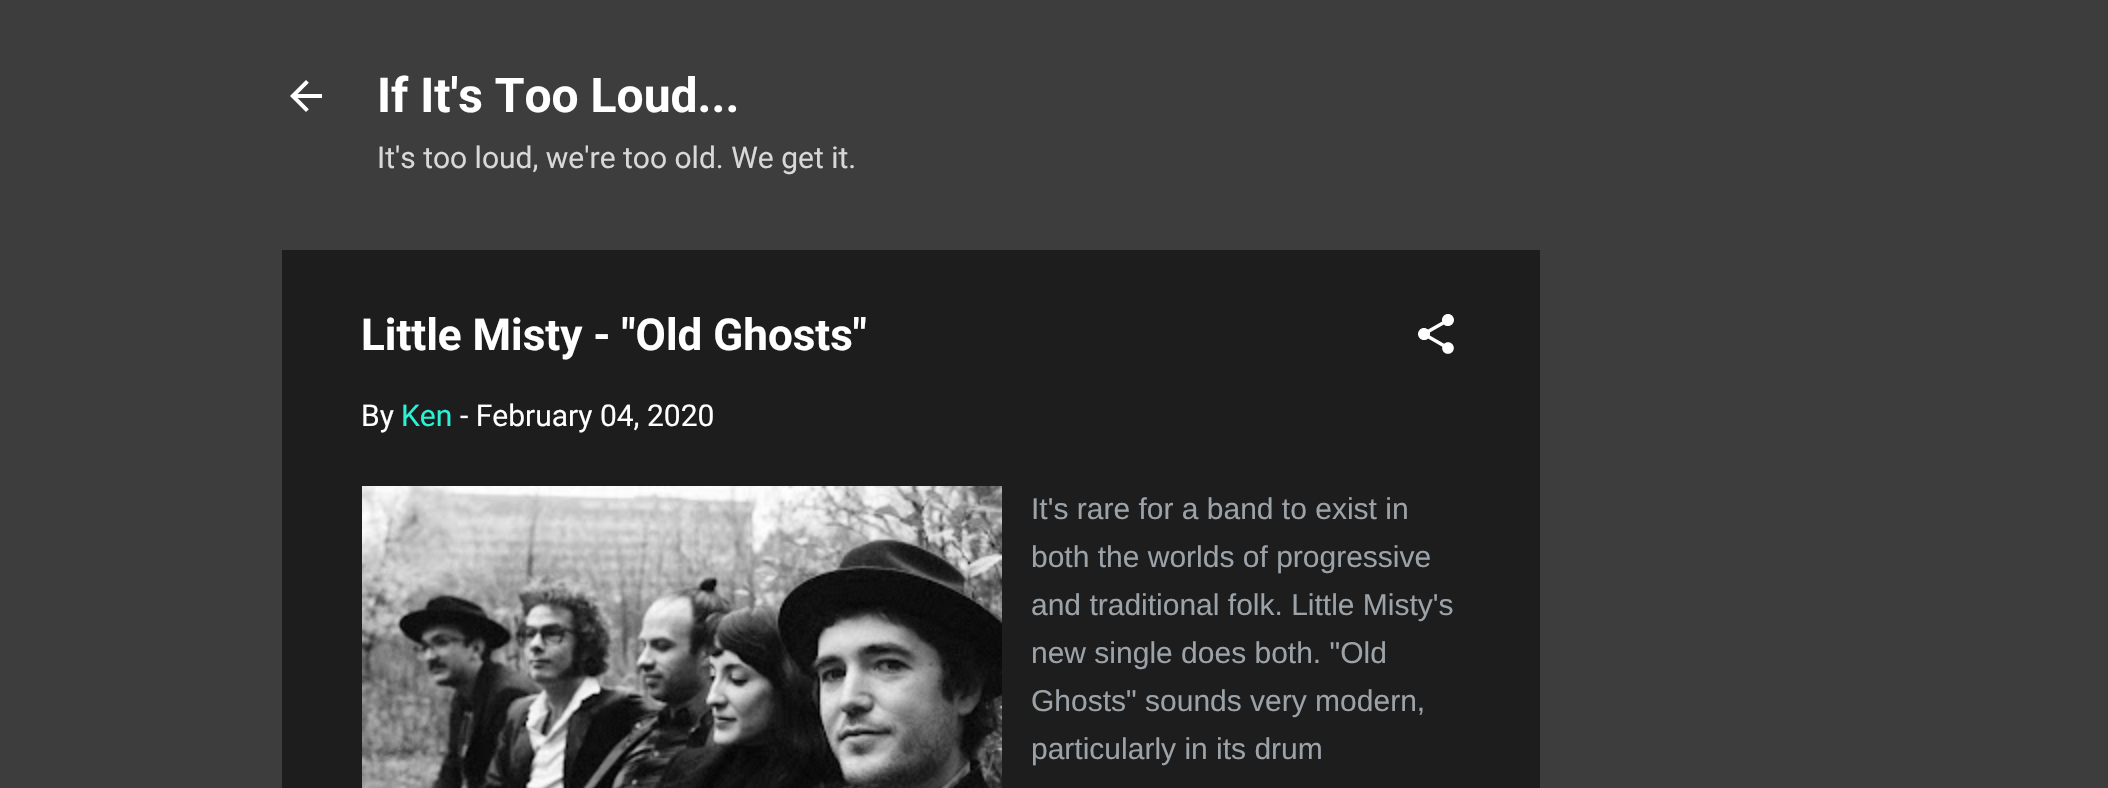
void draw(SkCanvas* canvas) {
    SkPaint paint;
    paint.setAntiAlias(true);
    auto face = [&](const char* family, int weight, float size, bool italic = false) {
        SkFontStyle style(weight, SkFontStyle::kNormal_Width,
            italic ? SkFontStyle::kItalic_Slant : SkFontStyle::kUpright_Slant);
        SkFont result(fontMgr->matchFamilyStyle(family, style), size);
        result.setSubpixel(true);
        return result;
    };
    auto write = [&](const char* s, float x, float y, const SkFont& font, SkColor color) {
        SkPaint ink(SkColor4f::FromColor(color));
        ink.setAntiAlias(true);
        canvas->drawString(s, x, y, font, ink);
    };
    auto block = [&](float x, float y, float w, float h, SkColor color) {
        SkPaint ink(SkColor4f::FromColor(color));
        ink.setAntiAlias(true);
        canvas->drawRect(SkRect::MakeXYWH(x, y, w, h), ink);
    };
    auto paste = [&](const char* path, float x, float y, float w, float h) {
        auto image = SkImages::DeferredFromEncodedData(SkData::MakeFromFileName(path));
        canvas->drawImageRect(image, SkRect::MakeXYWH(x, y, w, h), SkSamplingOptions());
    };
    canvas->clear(SkColorSetRGB(61, 61, 61));
    paste("pic1.png", 290, 80, 32, 32);
    auto kFont1 = face("Roboto", 700, 48);
    write("If It's Too Loud...", 377, 112, kFont1, SK_ColorWHITE);
    auto kFont2 = face("Roboto", 400, 30);
    write("It's too loud, we're too old. We get it.", 377, 168, kFont2, SkColorSetRGB(216, 216, 216));
    block(282, 250, 1258, 538, SkColorSetRGB(29, 29, 29));
    auto kFont3 = face("Roboto", 700, 44);
    write("Little Misty - \"Old Ghosts\"", 361, 350, kFont3, SK_ColorWHITE);
    paste("pic2.png", 1418, 314, 36, 40);
    write("By", 361, 426, kFont2, SK_ColorWHITE);
    write("Ken", 401, 426, kFont2, SkColorSetRGB(41, 243, 212));
    write("- February 04, 2020", 460, 426, kFont2, SK_ColorWHITE);
    paste("pic3.png", 362, 486, 640, 302);
    auto kFont4 = face("Liberation Sans", 400, 30);
    write("It's rare for a band to exist in", 1031, 519, kFont4, SkColorSetRGB(155, 162, 168));
    write("both the worlds of progressive", 1031, 567, kFont4, SkColorSetRGB(155, 162, 168));
    write("and traditional folk. Little Misty's", 1031, 615, kFont4, SkColorSetRGB(155, 162, 168));
    write("new single does both. \"Old", 1031, 663, kFont4, SkColorSetRGB(155, 162, 168));
    write("Ghosts\" sounds very modern,", 1031, 711, kFont4, SkColorSetRGB(155, 162, 168));
    write("particularly in its drum", 1031, 759, kFont4, SkColorSetRGB(155, 162, 168));
}
